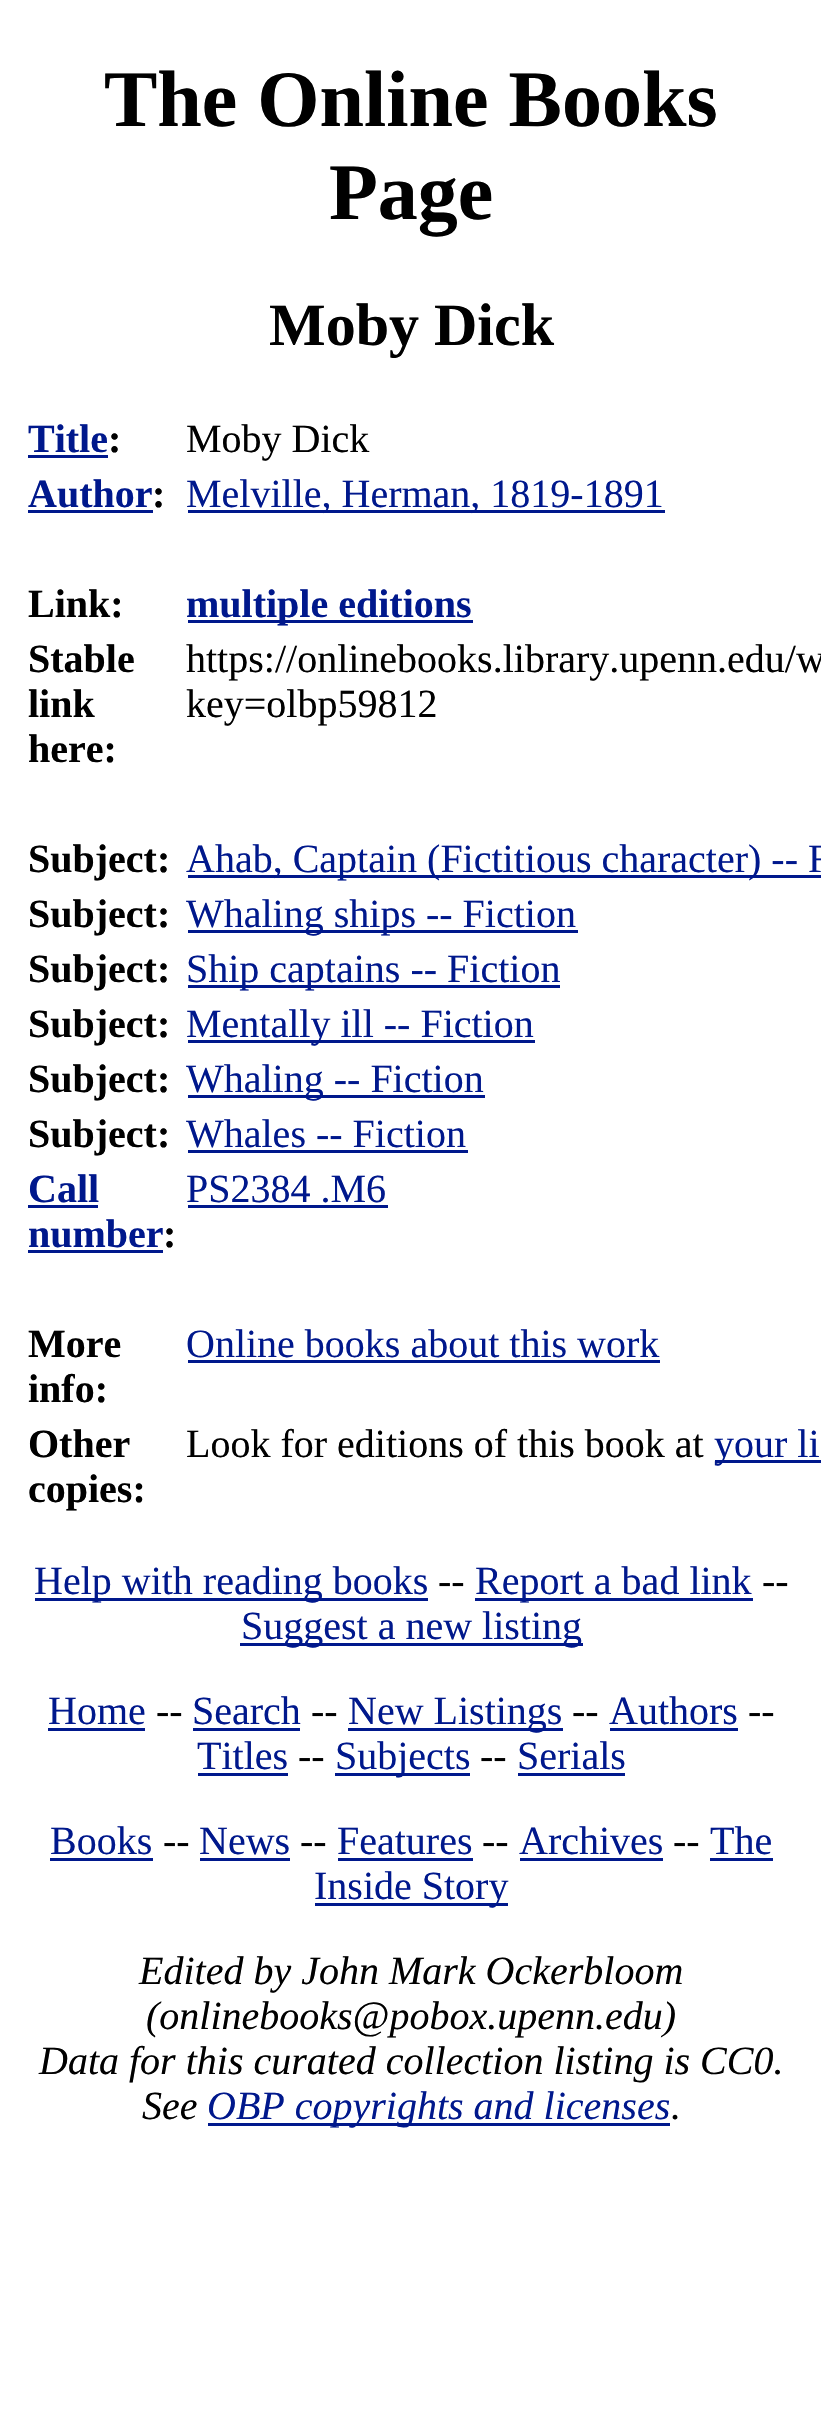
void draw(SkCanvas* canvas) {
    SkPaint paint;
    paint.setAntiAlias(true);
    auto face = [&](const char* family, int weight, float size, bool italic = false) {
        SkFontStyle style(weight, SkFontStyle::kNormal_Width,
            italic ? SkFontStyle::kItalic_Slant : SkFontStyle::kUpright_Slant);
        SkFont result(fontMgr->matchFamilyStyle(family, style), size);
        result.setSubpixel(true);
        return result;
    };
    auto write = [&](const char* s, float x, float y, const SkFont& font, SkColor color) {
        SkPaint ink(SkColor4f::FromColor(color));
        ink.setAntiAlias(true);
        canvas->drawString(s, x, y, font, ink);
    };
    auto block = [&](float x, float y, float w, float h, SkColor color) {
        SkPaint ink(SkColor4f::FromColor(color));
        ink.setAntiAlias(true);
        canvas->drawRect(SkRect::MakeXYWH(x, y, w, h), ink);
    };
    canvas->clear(SK_ColorWHITE);
    auto kFont1 = face("Liberation Serif", 700, 80);
    write("The Online Books", 104, 126, kFont1, SK_ColorBLACK);
    write("Page", 329, 219, kFont1, SK_ColorBLACK);
    auto kFont2 = face("Liberation Serif", 700, 60);
    write("Moby Dick", 269, 345, kFont2, SK_ColorBLACK);
    auto kFont3 = face("Liberation Serif", 700, 40);
    write("Title", 28, 452, kFont3, SkColorSetRGB(0, 24, 140));
    write(":", 108, 452, kFont3, SK_ColorBLACK);
    block(28, 455, 80, 3, SkColorSetRGB(0, 24, 140));
    auto kFont4 = face("Liberation Serif", 400, 40);
    write("Moby Dick", 186, 452, kFont4, SK_ColorBLACK);
    write("Author", 28, 507, kFont3, SkColorSetRGB(0, 24, 140));
    write(":", 152, 507, kFont3, SK_ColorBLACK);
    block(28, 510, 125, 3, SkColorSetRGB(0, 24, 140));
    block(188, 510, 477, 3, SkColorSetRGB(0, 24, 140));
    write("Melville, Herman, 1819-1891", 186, 507, kFont4, SkColorSetRGB(0, 24, 140));
    write("Link:", 28, 617, kFont3, SK_ColorBLACK);
    block(188, 620, 285, 3, SkColorSetRGB(0, 24, 140));
    write("multiple editions", 186, 617, kFont3, SkColorSetRGB(0, 24, 140));
    write("Stable", 28, 672, kFont3, SK_ColorBLACK);
    write("link", 28, 717, kFont3, SK_ColorBLACK);
    write("here:", 28, 762, kFont3, SK_ColorBLACK);
    write("https://onlinebooks.library.upenn.edu/w", 186, 672, kFont4, SK_ColorBLACK);
    write("key=olbp59812", 186, 717, kFont4, SK_ColorBLACK);
    write("Subject:", 28, 872, kFont3, SK_ColorBLACK);
    block(188, 875, 633, 3, SkColorSetRGB(0, 24, 140));
    write("Ahab, Captain (Fictitious character) -- F", 186, 872, kFont4, SkColorSetRGB(0, 24, 140));
    write("Subject:", 28, 927, kFont3, SK_ColorBLACK);
    block(188, 930, 390, 3, SkColorSetRGB(0, 24, 140));
    write("Whaling ships -- Fiction", 186, 927, kFont4, SkColorSetRGB(0, 24, 140));
    write("Subject:", 28, 982, kFont3, SK_ColorBLACK);
    block(188, 985, 372, 3, SkColorSetRGB(0, 24, 140));
    write("Ship captains -- Fiction", 186, 982, kFont4, SkColorSetRGB(0, 24, 140));
    write("Subject:", 28, 1037, kFont3, SK_ColorBLACK);
    block(188, 1040, 347, 3, SkColorSetRGB(0, 24, 140));
    write("Mentally ill -- Fiction", 186, 1037, kFont4, SkColorSetRGB(0, 24, 140));
    write("Subject:", 28, 1092, kFont3, SK_ColorBLACK);
    block(188, 1095, 297, 3, SkColorSetRGB(0, 24, 140));
    write("Whaling -- Fiction", 186, 1092, kFont4, SkColorSetRGB(0, 24, 140));
    write("Subject:", 28, 1147, kFont3, SK_ColorBLACK);
    write("Whales -- Fiction", 186, 1147, kFont4, SkColorSetRGB(0, 24, 140));
    block(188, 1150, 280, 3, SkColorSetRGB(0, 24, 140));
    write("Call", 28, 1202, kFont3, SkColorSetRGB(0, 24, 140));
    block(28, 1205, 70, 3, SkColorSetRGB(0, 24, 140));
    write("number", 28, 1247, kFont3, SkColorSetRGB(0, 24, 140));
    write(":", 163, 1247, kFont3, SK_ColorBLACK);
    block(28, 1250, 135, 3, SkColorSetRGB(0, 24, 140));
    write("PS2384 .M6", 186, 1202, kFont4, SkColorSetRGB(0, 24, 140));
    block(188, 1205, 200, 3, SkColorSetRGB(0, 24, 140));
    write("More", 28, 1357, kFont3, SK_ColorBLACK);
    write("info:", 28, 1402, kFont3, SK_ColorBLACK);
    write("Online books about this work", 186, 1357, kFont4, SkColorSetRGB(0, 24, 140));
    block(188, 1360, 472, 3, SkColorSetRGB(0, 24, 140));
    write("Other", 28, 1457, kFont3, SK_ColorBLACK);
    write("copies:", 28, 1502, kFont3, SK_ColorBLACK);
    write("Look for editions of this book at", 186, 1457, kFont4, SK_ColorBLACK);
    block(715, 1460, 106, 3, SkColorSetRGB(0, 24, 140));
    write("your li", 714, 1457, kFont4, SkColorSetRGB(0, 24, 140));
    block(35, 1598, 393, 3, SkColorSetRGB(0, 24, 140));
    write("Help with reading books", 34, 1594, kFont4, SkColorSetRGB(0, 24, 140));
    write("--", 438, 1594, kFont4, SK_ColorBLACK);
    block(475, 1598, 278, 3, SkColorSetRGB(0, 24, 140));
    write("Report a bad link", 475, 1594, kFont4, SkColorSetRGB(0, 24, 140));
    write("--", 762, 1594, kFont4, SK_ColorBLACK);
    block(240, 1643, 343, 3, SkColorSetRGB(0, 24, 140));
    write("Suggest a new listing", 241, 1639, kFont4, SkColorSetRGB(0, 24, 140));
    write("Home", 48, 1724, kFont4, SkColorSetRGB(0, 24, 140));
    block(48, 1728, 97, 3, SkColorSetRGB(0, 24, 140));
    write("--", 156, 1724, kFont4, SK_ColorBLACK);
    write("Search", 192, 1724, kFont4, SkColorSetRGB(0, 24, 140));
    block(193, 1728, 107, 3, SkColorSetRGB(0, 24, 140));
    write("--", 311, 1724, kFont4, SK_ColorBLACK);
    block(348, 1728, 215, 3, SkColorSetRGB(0, 24, 140));
    write("New Listings", 348, 1724, kFont4, SkColorSetRGB(0, 24, 140));
    write("--", 572, 1724, kFont4, SK_ColorBLACK);
    write("Authors", 609, 1724, kFont4, SkColorSetRGB(0, 24, 140));
    block(610, 1728, 128, 3, SkColorSetRGB(0, 24, 140));
    write("--", 748, 1724, kFont4, SK_ColorBLACK);
    write("Titles", 197, 1769, kFont4, SkColorSetRGB(0, 24, 140));
    block(198, 1773, 90, 3, SkColorSetRGB(0, 24, 140));
    write("--", 298, 1769, kFont4, SK_ColorBLACK);
    block(335, 1773, 135, 3, SkColorSetRGB(0, 24, 140));
    write("Subjects", 335, 1769, kFont4, SkColorSetRGB(0, 24, 140));
    write("--", 480, 1769, kFont4, SK_ColorBLACK);
    write("Serials", 517, 1769, kFont4, SkColorSetRGB(0, 24, 140));
    block(518, 1773, 107, 3, SkColorSetRGB(0, 24, 140));
    write("Books", 50, 1854, kFont4, SkColorSetRGB(0, 24, 140));
    block(50, 1858, 103, 3, SkColorSetRGB(0, 24, 140));
    write("--", 163, 1854, kFont4, SK_ColorBLACK);
    write("News", 199, 1854, kFont4, SkColorSetRGB(0, 24, 140));
    block(200, 1858, 90, 3, SkColorSetRGB(0, 24, 140));
    write("--", 300, 1854, kFont4, SK_ColorBLACK);
    write("Features", 337, 1854, kFont4, SkColorSetRGB(0, 24, 140));
    block(338, 1858, 135, 3, SkColorSetRGB(0, 24, 140));
    write("--", 482, 1854, kFont4, SK_ColorBLACK);
    write("Archives", 519, 1854, kFont4, SkColorSetRGB(0, 24, 140));
    block(520, 1858, 143, 3, SkColorSetRGB(0, 24, 140));
    write("--", 673, 1854, kFont4, SK_ColorBLACK);
    write("The", 710, 1854, kFont4, SkColorSetRGB(0, 24, 140));
    block(710, 1858, 63, 3, SkColorSetRGB(0, 24, 140));
    block(315, 1903, 193, 3, SkColorSetRGB(0, 24, 140));
    write("Inside Story", 314, 1899, kFont4, SkColorSetRGB(0, 24, 140));
    auto kFont5 = face("Liberation Serif", 400, 40, true);
    write("Edited by John Mark Ockerbloom", 139, 1984, kFont5, SK_ColorBLACK);
    write("(onlinebooks@pobox.upenn.edu)", 146, 2029, kFont5, SK_ColorBLACK);
    write("Data for this curated collection listing is CC0.", 39, 2074, kFont5, SK_ColorBLACK);
    write("See", 142, 2119, kFont5, SK_ColorBLACK);
    block(208, 2123, 462, 3, SkColorSetRGB(0, 24, 140));
    write("OBP copyrights and licenses", 207, 2119, kFont5, SkColorSetRGB(0, 24, 140));
    write(".", 671, 2119, kFont5, SK_ColorBLACK);
}
